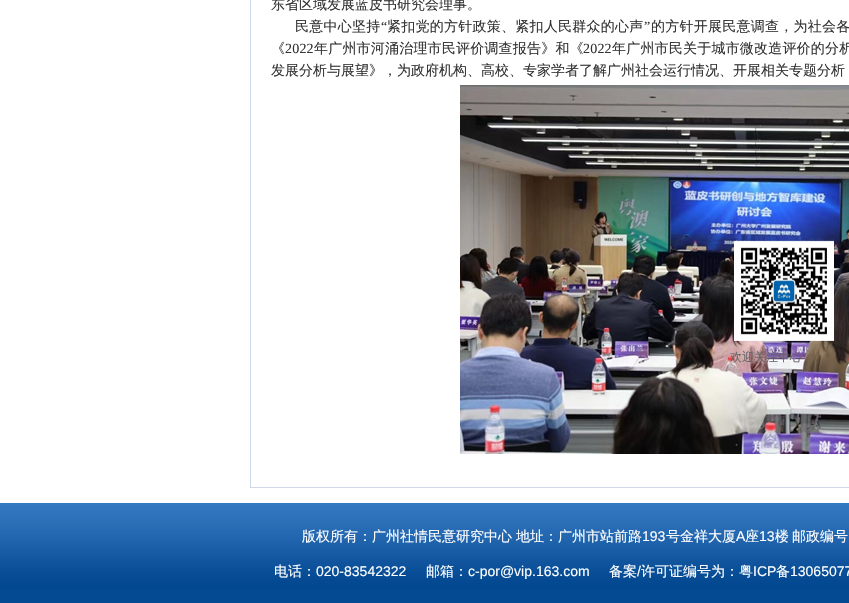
void draw(SkCanvas* canvas) {
    SkPaint paint;
    paint.setAntiAlias(true);
    auto face = [&](const char* family, int weight, float size, bool italic = false) {
        SkFontStyle style(weight, SkFontStyle::kNormal_Width,
            italic ? SkFontStyle::kItalic_Slant : SkFontStyle::kUpright_Slant);
        SkFont result(fontMgr->matchFamilyStyle(family, style), size);
        result.setSubpixel(true);
        return result;
    };
    auto write = [&](const char* s, float x, float y, const SkFont& font, SkColor color) {
        SkPaint ink(SkColor4f::FromColor(color));
        ink.setAntiAlias(true);
        canvas->drawString(s, x, y, font, ink);
    };
    auto writeSpaced = [&](const char* s, float x, float y, const SkFont& font, const SkPaint& ink, float letter, float word) {
        std::vector<SkGlyphID> glyphs(font.countText(s, strlen(s), SkTextEncoding::kUTF8));
        std::vector<float> xs(glyphs.size());
        font.textToGlyphs(s, strlen(s), SkTextEncoding::kUTF8, glyphs);
        font.getXPos(glyphs, xs, x);
        float extra = 0;
        for (size_t i = 0; i < glyphs.size(); i++) {
            xs[i] += extra;
            extra += letter + word * (glyphs[i] == font.unicharToGlyph(' '));
        }
        canvas->drawTextBlob(SkTextBlob::MakeFromPosHGlyphs(glyphs, xs, y, font), 0, 0, ink);
    };
    auto block = [&](float x, float y, float w, float h, SkColor color) {
        SkPaint ink(SkColor4f::FromColor(color));
        ink.setAntiAlias(true);
        canvas->drawRect(SkRect::MakeXYWH(x, y, w, h), ink);
    };
    auto paste = [&](const char* path, float x, float y, float w, float h) {
        auto image = SkImages::DeferredFromEncodedData(SkData::MakeFromFileName(path));
        canvas->drawImageRect(image, SkRect::MakeXYWH(x, y, w, h), SkSamplingOptions());
    };
    canvas->clear(SK_ColorWHITE);
    block(250, 487, 599, 1, SkColorSetRGB(205, 217, 231));
    block(250, 0, 1, 488, SkColorSetRGB(205, 217, 231));
    auto kFont1 = face("WenQuanYi Zen Hei", 500, 14);
    write("东省区域发展蓝皮书研究会理事。", 271, 9, kFont1, SkColorSetRGB(51, 51, 51));
    paint.setColor(SkColorSetRGB(51, 51, 51));
    writeSpaced("民意中心坚持", 295, 31, kFont1, paint, 0.25f, 0);
    auto kFont2 = face("Liberation Serif", 400, 14);
    writeSpaced("“", 381, 31, kFont2, paint, 0.25f, 0);
    writeSpaced("紧扣党的方针政策、紧扣人民群众的心声", 387, 31, kFont1, paint, 0.25f, 0);
    writeSpaced("”", 644, 31, kFont2, paint, 0.25f, 0);
    writeSpaced("的方针开展民意调查，为社会各", 651, 31, kFont1, paint, 0.25f, 0);
    writeSpaced("《", 271, 53, kFont1, paint, 0.2f, 0);
    writeSpaced("2022", 285, 53, kFont2, paint, 0.2f, 0);
    writeSpaced("年广州市河涌治理市民评价调查报告》和《", 314, 53, kFont1, paint, 0.2f, 0);
    writeSpaced("2022", 583, 53, kFont2, paint, 0.2f, 0);
    writeSpaced("年广州市民关于城市微改造评价的分析", 612, 53, kFont1, paint, 0.2f, 0);
    write("发展分析与展望》，为政府机构、高校、专家学者了解广州社会运行情况、开展相关专题分析", 271, 75, kFont1, SkColorSetRGB(51, 51, 51));
    paste("pic1.png", 460, 85, 389, 369);
    paste("pic2.png", 734, 240, 100, 101);
    auto kFont3 = face("WenQuanYi Zen Hei", 500, 12);
    write("欢迎关注中心", 730, 361, kFont3, SkColorSetRGB(102, 102, 102));
    paste("pic3.png", 0, 503, 849, 100);
    write("版权所有：广州社情民意研究中心", 302, 541, kFont1, SK_ColorWHITE);
    write("地址：广州市站前路", 516, 541, kFont1, SK_ColorWHITE);
    auto kFont4 = face("Liberation Sans", 400, 14);
    write("193", 642, 541, kFont4, SK_ColorWHITE);
    write("号金祥大厦", 666, 541, kFont1, SK_ColorWHITE);
    write("A", 736, 541, kFont4, SK_ColorWHITE);
    write("座", 745, 541, kFont1, SK_ColorWHITE);
    write("13", 759, 541, kFont4, SK_ColorWHITE);
    write("楼", 775, 541, kFont1, SK_ColorWHITE);
    write("邮政编号", 792, 541, kFont1, SK_ColorWHITE);
    write("电话：", 274, 576, kFont1, SK_ColorWHITE);
    write("020-83542322", 316, 576, kFont4, SK_ColorWHITE);
    write("邮箱：", 426, 576, kFont1, SK_ColorWHITE);
    write("c-por@vip.163.com", 468, 576, kFont4, SK_ColorWHITE);
    write("备案", 609, 576, kFont1, SK_ColorWHITE);
    write("/", 637, 576, kFont4, SK_ColorWHITE);
    write("许可证编号为：粤", 641, 576, kFont1, SK_ColorWHITE);
    write("ICP", 753, 576, kFont4, SK_ColorWHITE);
    write("备", 776, 576, kFont1, SK_ColorWHITE);
    write("13065077", 790, 576, kFont4, SK_ColorWHITE);
}
